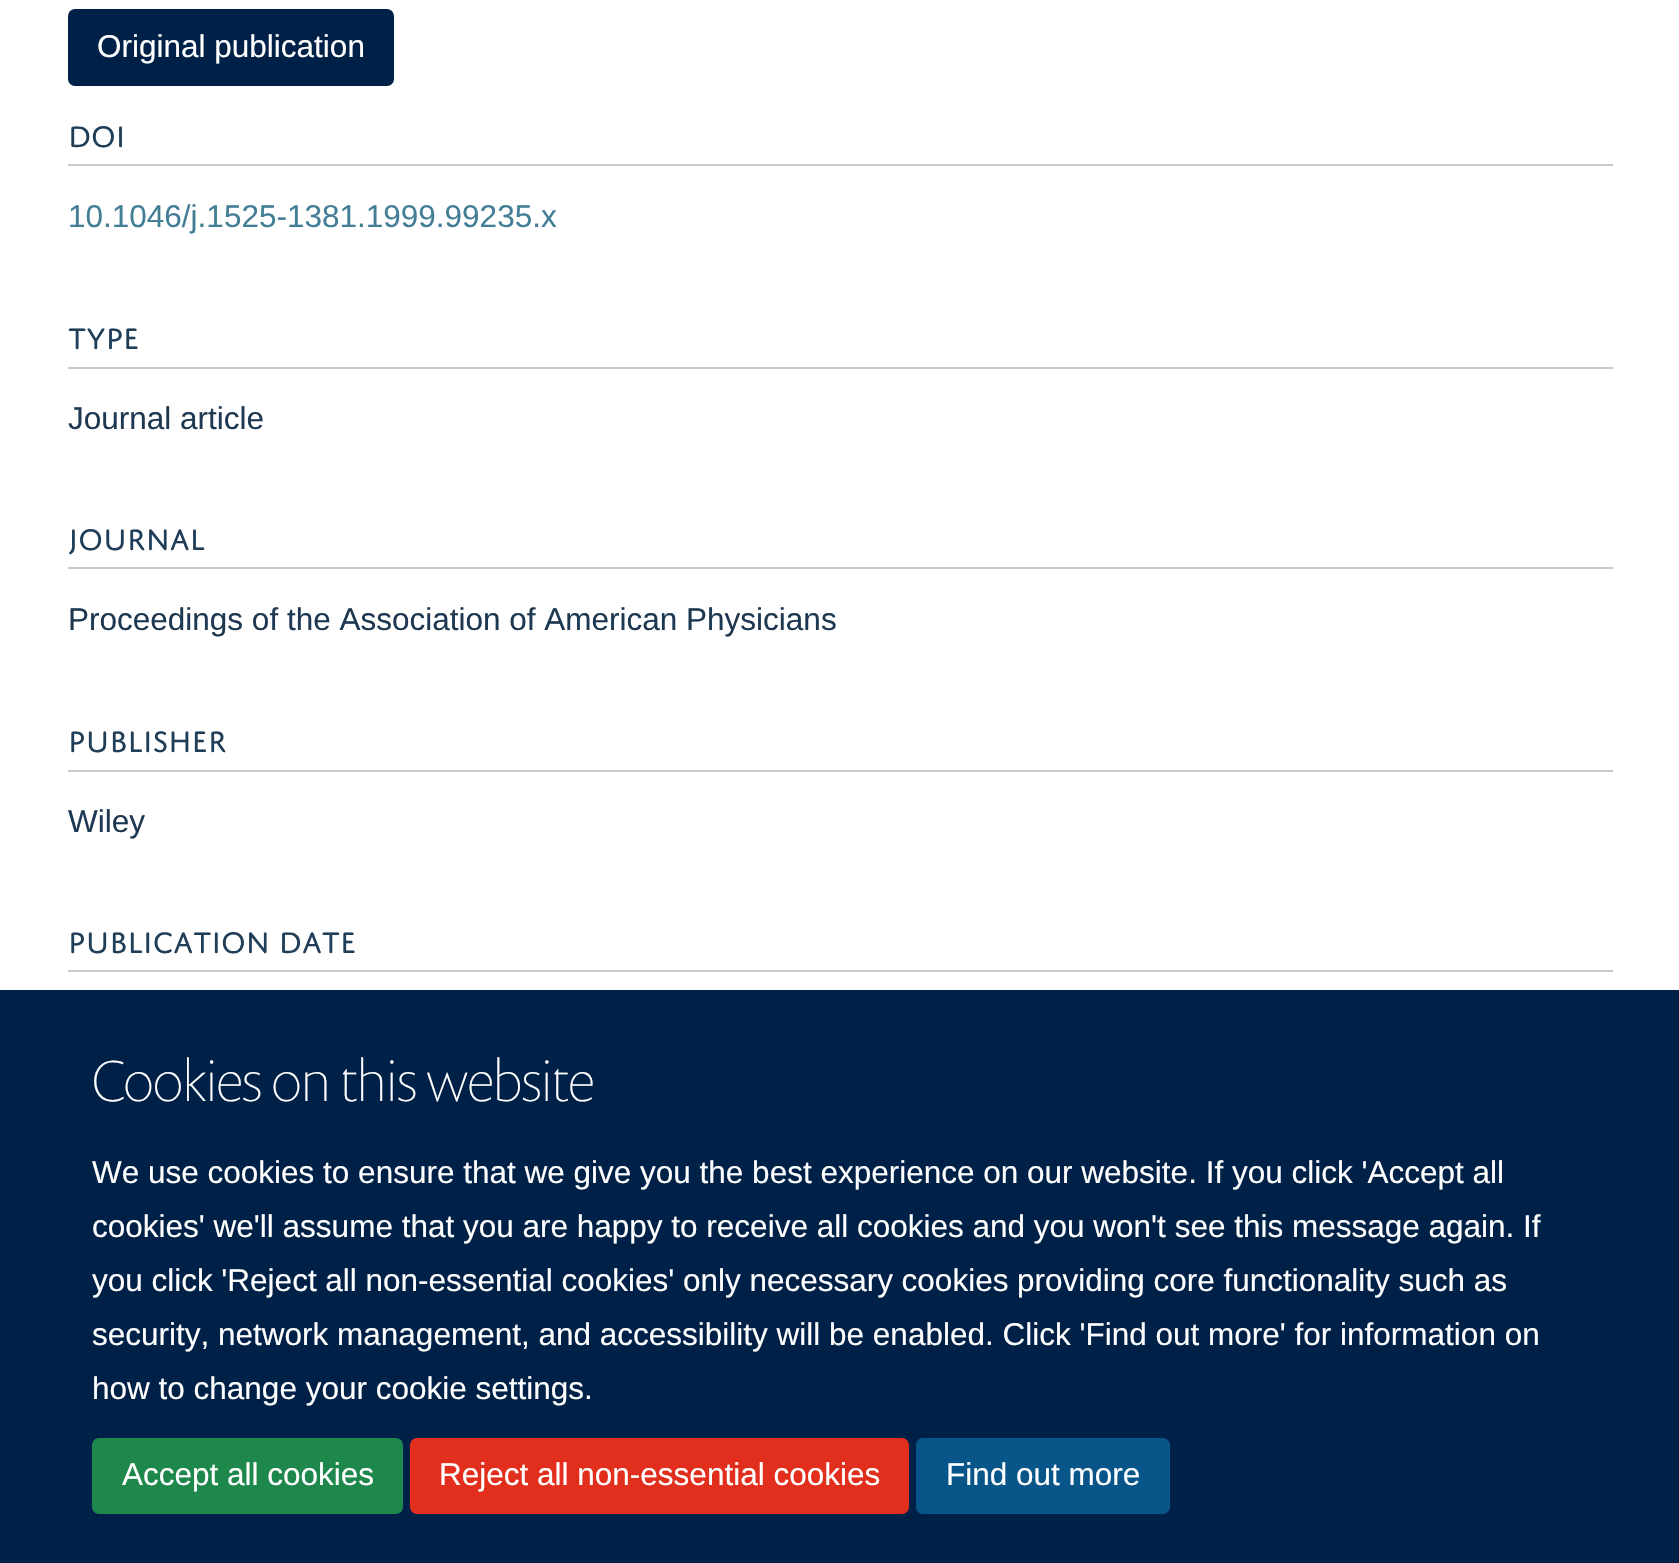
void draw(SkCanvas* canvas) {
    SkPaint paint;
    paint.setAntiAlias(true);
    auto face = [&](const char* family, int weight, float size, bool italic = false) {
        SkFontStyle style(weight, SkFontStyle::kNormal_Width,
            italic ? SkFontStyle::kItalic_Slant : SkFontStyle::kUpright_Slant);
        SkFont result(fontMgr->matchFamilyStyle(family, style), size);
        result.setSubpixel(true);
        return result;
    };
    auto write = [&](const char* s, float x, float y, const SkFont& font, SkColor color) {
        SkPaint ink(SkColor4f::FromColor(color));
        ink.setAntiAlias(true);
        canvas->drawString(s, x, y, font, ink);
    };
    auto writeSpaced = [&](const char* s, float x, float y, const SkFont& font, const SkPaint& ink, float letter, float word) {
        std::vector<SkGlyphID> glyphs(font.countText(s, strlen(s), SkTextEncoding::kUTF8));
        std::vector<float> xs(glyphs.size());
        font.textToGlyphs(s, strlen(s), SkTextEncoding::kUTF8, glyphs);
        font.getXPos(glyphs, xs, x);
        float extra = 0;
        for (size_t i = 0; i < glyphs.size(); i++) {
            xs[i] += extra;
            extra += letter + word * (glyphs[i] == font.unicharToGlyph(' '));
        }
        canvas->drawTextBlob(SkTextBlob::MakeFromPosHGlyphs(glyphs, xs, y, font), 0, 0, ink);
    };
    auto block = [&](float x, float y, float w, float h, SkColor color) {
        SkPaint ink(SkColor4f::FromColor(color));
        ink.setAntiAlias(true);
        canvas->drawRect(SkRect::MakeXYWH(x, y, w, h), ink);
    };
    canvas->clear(SK_ColorWHITE);
    paint.setColor(SkColorSetRGB(0, 33, 71));
    canvas->drawRoundRect(SkRect::MakeXYWH(69, 10, 324, 75), 6, 6, paint);
    paint.setStyle(SkPaint::kStroke_Style);
    paint.setStrokeWidth(2);
    canvas->drawRoundRect(SkRect::MakeXYWH(69, 10, 324, 75), 6, 6, paint);
    auto kFont1 = face("Liberation Sans", 400, 31.5f);
    write("Original publication", 97, 57, kFont1, SK_ColorWHITE);
    block(68, 164, 1545, 2, SkColorSetRGB(198, 202, 207));
    auto kFont2 = face("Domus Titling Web", 400, 31.5f);
    write("DOI", 68, 147, kFont2, SkColorSetRGB(32, 62, 88));
    write("10.1046/j.1525-1381.1999.99235.x", 68, 227, kFont1, SkColorSetRGB(67, 126, 150));
    block(68, 367, 1545, 2, SkColorSetRGB(198, 202, 207));
    write("TYPE", 68, 349, kFont2, SkColorSetRGB(32, 62, 88));
    write("Journal article", 68, 429, kFont1, SkColorSetRGB(29, 56, 80));
    block(68, 567, 1545, 2, SkColorSetRGB(198, 202, 207));
    write("JOURNAL", 68, 550, kFont2, SkColorSetRGB(32, 62, 88));
    write("Proceedings of the Association of American Physicians", 68, 630, kFont1, SkColorSetRGB(29, 56, 80));
    block(68, 770, 1545, 2, SkColorSetRGB(198, 202, 207));
    write("PUBLISHER", 68, 752, kFont2, SkColorSetRGB(32, 62, 88));
    write("Wiley", 68, 832, kFont1, SkColorSetRGB(29, 56, 80));
    block(68, 970, 1545, 2, SkColorSetRGB(198, 202, 207));
    write("PUBLICATION DATE", 68, 953, kFont2, SkColorSetRGB(32, 62, 88));
    block(0, 990, 1679, 573, SkColorSetRGB(0, 33, 71));
    auto kFont3 = face("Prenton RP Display", 100, 58.5f);
    write("Cookies on this website", 92, 1101, kFont3, SK_ColorWHITE);
    write("We use cookies to ensure that we give you the best experience on our website. If you click 'Accept all", 92, 1183, kFont1, SK_ColorWHITE);
    write("cookies' we'll assume that you are happy to receive all cookies and you won't see this message again. If", 92, 1237, kFont1, SK_ColorWHITE);
    paint.setStyle(SkPaint::kFill_Style);
    paint.setColor(SK_ColorWHITE);
    writeSpaced("you click 'Reject all non-essential cookies' only necessary cookies providing core functionality such as", 92, 1291, kFont1, paint, 0, -0.1f);
    write("security, network management, and accessibility will be enabled. Click 'Find out more' for information on", 92, 1345, kFont1, SK_ColorWHITE);
    write("how to change your cookie settings.", 92, 1399, kFont1, SK_ColorWHITE);
    paint.setColor(SkColorSetRGB(30, 135, 75));
    canvas->drawRoundRect(SkRect::MakeXYWH(93, 1439, 309, 74), 6, 6, paint);
    paint.setStyle(SkPaint::kStroke_Style);
    canvas->drawRoundRect(SkRect::MakeXYWH(93, 1439, 309, 74), 6, 6, paint);
    write("Accept all cookies", 122, 1485, kFont1, SK_ColorWHITE);
    paint.setStyle(SkPaint::kFill_Style);
    paint.setColor(SkColorSetRGB(226, 46, 28));
    canvas->drawRoundRect(SkRect::MakeXYWH(411, 1439, 497, 74), 6, 6, paint);
    paint.setStyle(SkPaint::kStroke_Style);
    canvas->drawRoundRect(SkRect::MakeXYWH(411, 1439, 497, 74), 6, 6, paint);
    write("Reject all non-essential cookies", 439, 1485, kFont1, SK_ColorWHITE);
    paint.setStyle(SkPaint::kFill_Style);
    paint.setColor(SkColorSetRGB(8, 85, 137));
    canvas->drawRoundRect(SkRect::MakeXYWH(917, 1439, 252, 74), 6, 6, paint);
    paint.setStyle(SkPaint::kStroke_Style);
    canvas->drawRoundRect(SkRect::MakeXYWH(917, 1439, 252, 74), 6, 6, paint);
    write("Find out more", 946, 1485, kFont1, SK_ColorWHITE);
}
